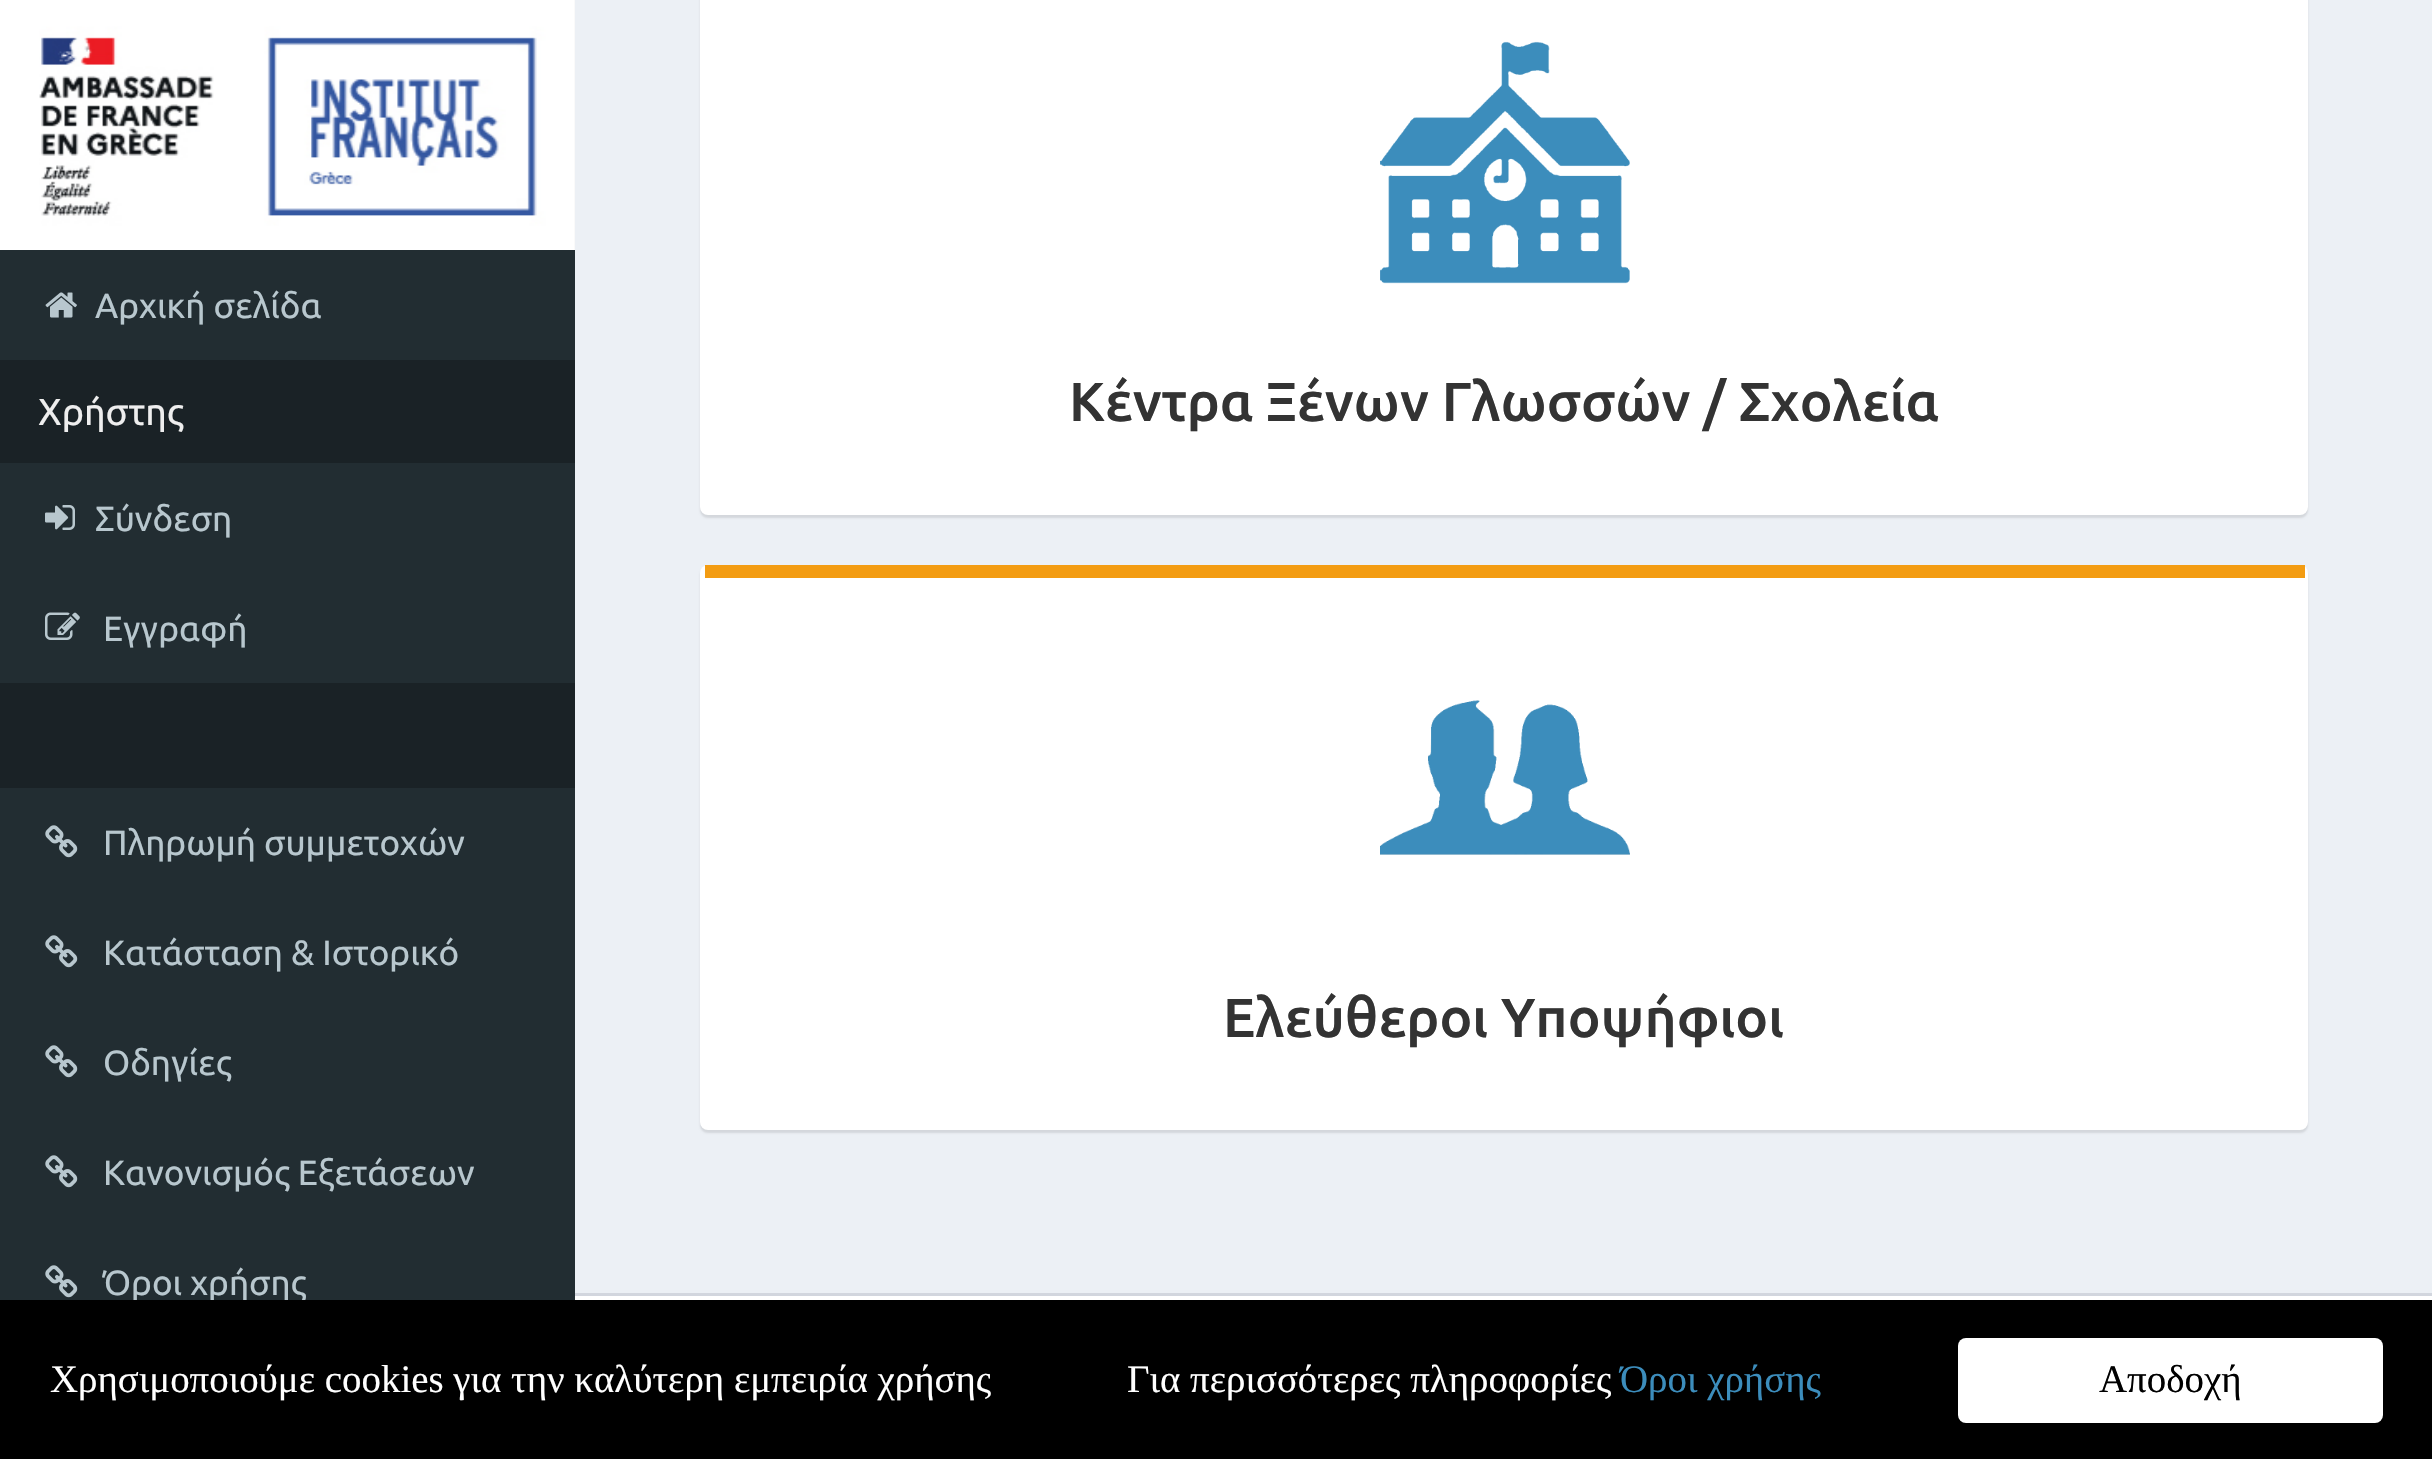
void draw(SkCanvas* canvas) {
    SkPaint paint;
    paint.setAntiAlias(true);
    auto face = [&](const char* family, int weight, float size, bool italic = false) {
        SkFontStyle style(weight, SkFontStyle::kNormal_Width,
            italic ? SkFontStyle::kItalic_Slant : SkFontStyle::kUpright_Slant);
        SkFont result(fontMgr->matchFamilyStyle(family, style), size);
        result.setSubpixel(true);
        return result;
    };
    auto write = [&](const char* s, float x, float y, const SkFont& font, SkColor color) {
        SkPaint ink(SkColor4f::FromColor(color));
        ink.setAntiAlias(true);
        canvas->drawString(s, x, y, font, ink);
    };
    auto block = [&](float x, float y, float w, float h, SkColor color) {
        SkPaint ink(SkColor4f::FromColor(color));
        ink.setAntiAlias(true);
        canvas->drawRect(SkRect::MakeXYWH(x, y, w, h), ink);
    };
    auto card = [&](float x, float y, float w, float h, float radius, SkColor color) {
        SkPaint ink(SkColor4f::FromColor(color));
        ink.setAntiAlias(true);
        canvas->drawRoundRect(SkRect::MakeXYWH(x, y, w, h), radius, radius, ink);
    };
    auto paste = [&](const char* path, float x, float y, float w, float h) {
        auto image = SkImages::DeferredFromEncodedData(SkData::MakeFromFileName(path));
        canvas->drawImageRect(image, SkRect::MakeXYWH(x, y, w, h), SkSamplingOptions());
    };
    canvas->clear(SkColorSetRGB(34, 45, 50));
    block(574, 0, 1, 250, SkColorSetRGB(238, 238, 238));
    paste("pic1.png", 0, 0, 575, 250);
    paste("pic2.png", 45, 292, 32, 26);
    auto kFont1 = face("Ubuntu", 400, 35);
    write("Αρχική σελίδα", 95, 318, kFont1, SkColorSetRGB(184, 199, 206));
    block(0, 360, 575, 103, SkColorSetRGB(26, 34, 38));
    auto kFont2 = face("Ubuntu", 400, 37.5f);
    write("Χρήστης", 38, 425, kFont2, SkColorSetRGB(238, 238, 238));
    paste("pic3.png", 45, 505, 30, 25);
    write("Σύνδεση", 95, 531, kFont1, SkColorSetRGB(184, 199, 206));
    paste("pic4.png", 45, 612, 35, 28);
    write("Εγγραφή", 103, 641, kFont1, SkColorSetRGB(184, 199, 206));
    block(0, 683, 575, 105, SkColorSetRGB(26, 34, 38));
    paste("pic5.png", 45, 825, 33, 33);
    write("Πληρωμή συμμετοχών", 103, 855, kFont1, SkColorSetRGB(184, 199, 206));
    paste("pic5.png", 45, 935, 33, 33);
    write("Κατάσταση & Ιστορικό", 103, 965, kFont1, SkColorSetRGB(184, 199, 206));
    paste("pic5.png", 45, 1045, 33, 33);
    write("Οδηγίες", 103, 1075, kFont1, SkColorSetRGB(184, 199, 206));
    paste("pic5.png", 45, 1155, 33, 33);
    write("Κανονισμός Εξετάσεων", 103, 1185, kFont1, SkColorSetRGB(184, 199, 206));
    paste("pic5.png", 45, 1265, 33, 33);
    write("Όροι χρήσης", 103, 1295, kFont1, SkColorSetRGB(184, 199, 206));
    block(575, 0, 1857, 1293, SkColorSetRGB(236, 240, 245));
    paint.setColor(SkColorSetARGB(26, 0, 0, 0));
    paint.setMaskFilter(SkMaskFilter::MakeBlur(kNormal_SkBlurStyle, 1));
    canvas->drawRoundRect(SkRect::MakeXYWH(700, -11, 1608, 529), 8, 8, paint);
    paint.setMaskFilter(nullptr);
    card(700, -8, 1608, 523, 8, SK_ColorWHITE);
    paste("pic6.png", 1380, 41, 250, 243);
    auto kFont3 = face("Ubuntu", 500, 55);
    write("Κέντρα Ξένων Γλωσσών / Σχολεία", 1069, 421, kFont3, SkColorSetRGB(51, 51, 51));
    paint.setMaskFilter(SkMaskFilter::MakeBlur(kNormal_SkBlurStyle, 1));
    canvas->drawRoundRect(SkRect::MakeXYWH(700, 568, 1608, 565), 8, 8, paint);
    paint.setMaskFilter(nullptr);
    card(700, 565, 1608, 565, 8, SK_ColorWHITE);
    block(705, 565, 1600, 13, SkColorSetRGB(243, 156, 18));
    paste("pic7.png", 1380, 700, 250, 155);
    write("Ελεύθεροι Υποψήφιοι", 1223, 1037, kFont3, SkColorSetRGB(51, 51, 51));
    block(575, 1296, 1857, 4, SK_ColorWHITE);
    block(575, 1293, 1857, 3, SkColorSetRGB(210, 214, 222));
    block(0, 1300, 2432, 159, SK_ColorBLACK);
    auto kFont4 = face("Liberation Serif", 400, 38.9f);
    write("Xρησιμοποιούμε cookies για την καλύτερη εμπειρία χρήσης", 50, 1392, kFont4, SK_ColorWHITE);
    write("Για περισσότερες πληροφορίες", 1127, 1392, kFont4, SK_ColorWHITE);
    write("Όροι χρήσης", 1620, 1392, kFont4, SkColorSetRGB(60, 141, 188));
    card(1958, 1338, 425, 85, 8, SK_ColorWHITE);
    write("Αποδοχή", 2099, 1392, kFont4, SK_ColorBLACK);
}
